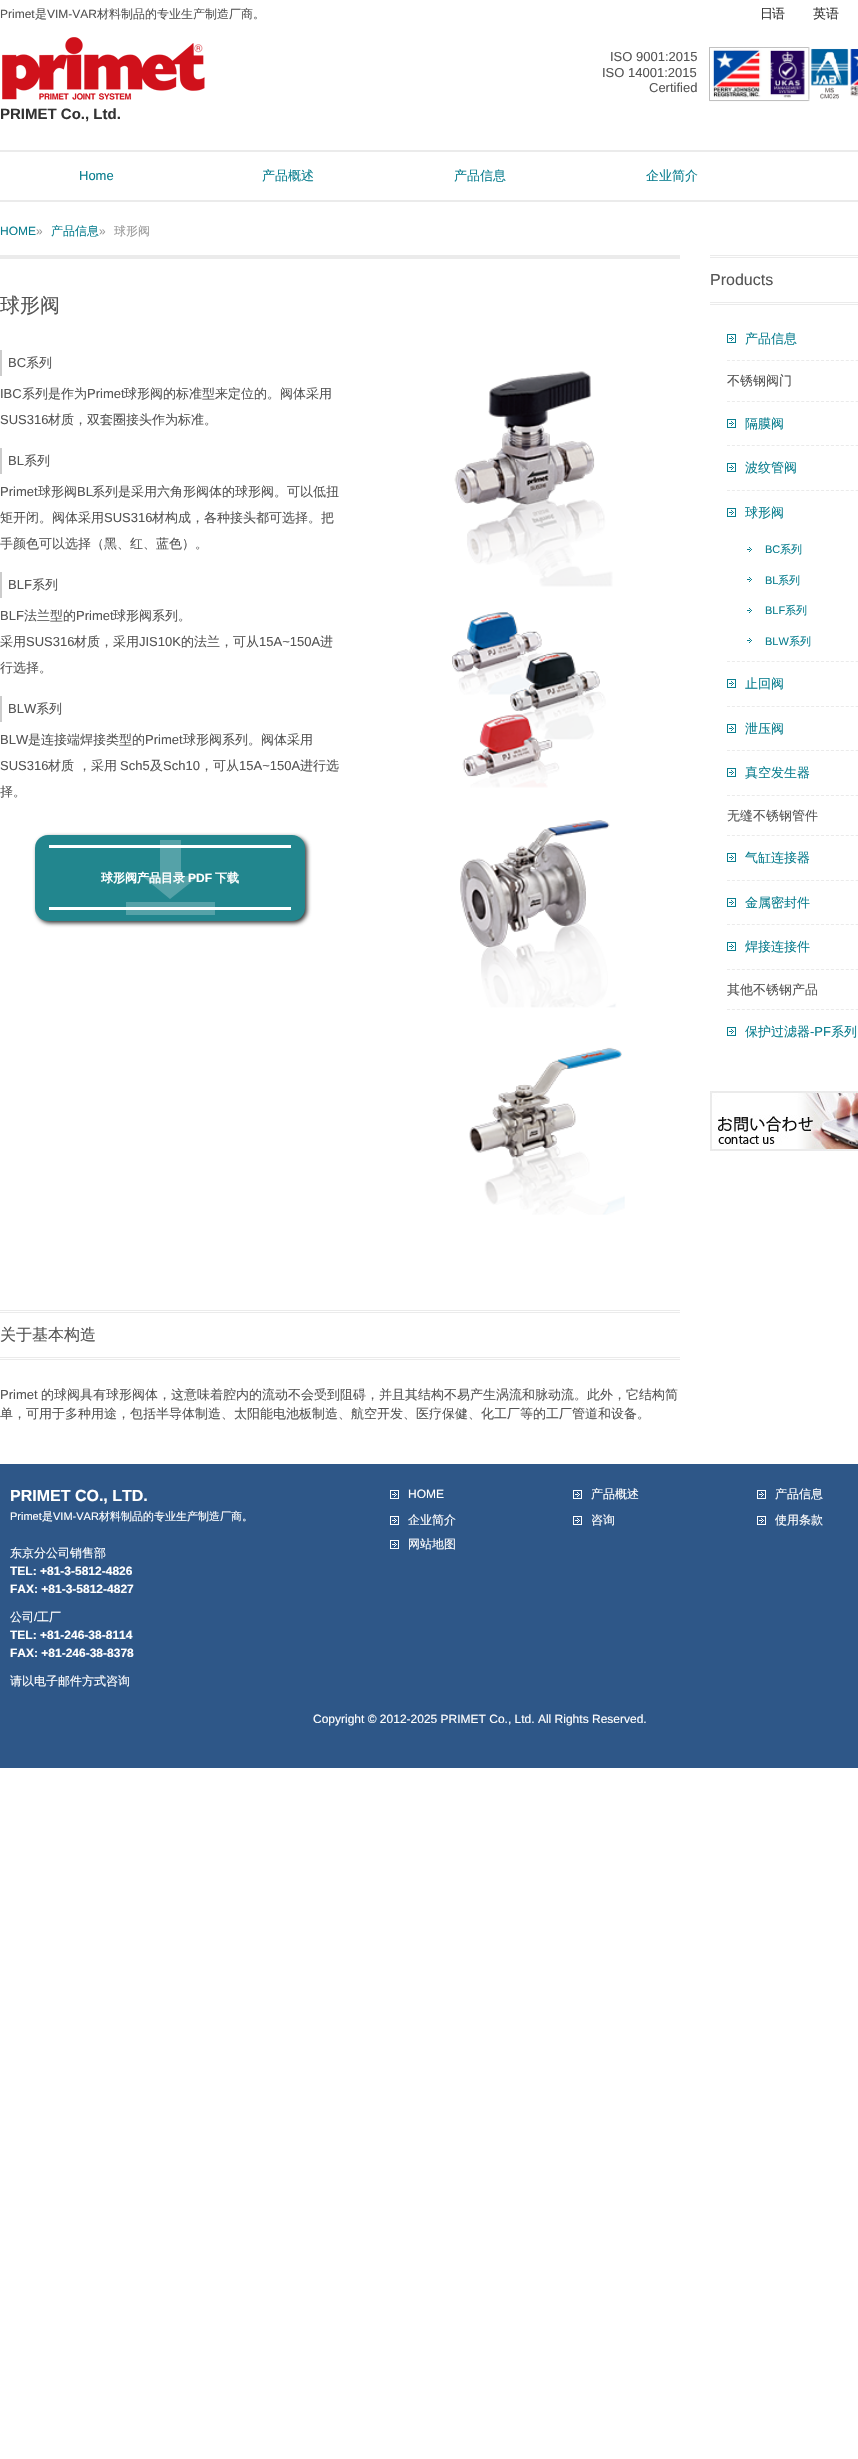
void draw(SkCanvas* canvas) {
    SkPaint paint;
    paint.setAntiAlias(true);
    auto face = [&](const char* family, int weight, float size, bool italic = false) {
        SkFontStyle style(weight, SkFontStyle::kNormal_Width,
            italic ? SkFontStyle::kItalic_Slant : SkFontStyle::kUpright_Slant);
        SkFont result(fontMgr->matchFamilyStyle(family, style), size);
        result.setSubpixel(true);
        return result;
    };
    auto write = [&](const char* s, float x, float y, const SkFont& font, SkColor color) {
        SkPaint ink(SkColor4f::FromColor(color));
        ink.setAntiAlias(true);
        canvas->drawString(s, x, y, font, ink);
    };
    auto writeSpaced = [&](const char* s, float x, float y, const SkFont& font, const SkPaint& ink, float letter, float word) {
        std::vector<SkGlyphID> glyphs(font.countText(s, strlen(s), SkTextEncoding::kUTF8));
        std::vector<float> xs(glyphs.size());
        font.textToGlyphs(s, strlen(s), SkTextEncoding::kUTF8, glyphs);
        font.getXPos(glyphs, xs, x);
        float extra = 0;
        for (size_t i = 0; i < glyphs.size(); i++) {
            xs[i] += extra;
            extra += letter + word * (glyphs[i] == font.unicharToGlyph(' '));
        }
        canvas->drawTextBlob(SkTextBlob::MakeFromPosHGlyphs(glyphs, xs, y, font), 0, 0, ink);
    };
    auto block = [&](float x, float y, float w, float h, SkColor color) {
        SkPaint ink(SkColor4f::FromColor(color));
        ink.setAntiAlias(true);
        canvas->drawRect(SkRect::MakeXYWH(x, y, w, h), ink);
    };
    auto card = [&](float x, float y, float w, float h, float radius, SkColor color) {
        SkPaint ink(SkColor4f::FromColor(color));
        ink.setAntiAlias(true);
        canvas->drawRoundRect(SkRect::MakeXYWH(x, y, w, h), radius, radius, ink);
    };
    auto paste = [&](const char* path, float x, float y, float w, float h) {
        auto image = SkImages::DeferredFromEncodedData(SkData::MakeFromFileName(path));
        canvas->drawImageRect(image, SkRect::MakeXYWH(x, y, w, h), SkSamplingOptions());
    };
    canvas->clear(SK_ColorWHITE);
    auto kFont1 = face("Liberation Sans", 400, 12);
    write("Primet", 0, 18, kFont1, SkColorSetRGB(85, 85, 85));
    auto kFont2 = face("WenQuanYi Zen Hei", 500, 12);
    write("是", 35, 18, kFont2, SkColorSetRGB(85, 85, 85));
    write("VIM-VAR", 47, 18, kFont1, SkColorSetRGB(85, 85, 85));
    write("材料制品的专业生产制造厂商。", 97, 18, kFont2, SkColorSetRGB(85, 85, 85));
    auto kFont3 = face("WenQuanYi Zen Hei", 500, 13);
    paint.setColor(SkColorSetRGB(51, 51, 51));
    writeSpaced("日语", 760, 18, kFont3, paint, -1, 0);
    write("英语", 813, 18, kFont3, SkColorSetRGB(51, 51, 51));
    auto kFont4 = face("Liberation Sans", 400, 13);
    write("ISO 9001:2015", 610, 61, kFont4, SkColorSetRGB(85, 85, 85));
    write("ISO 14001:2015", 602, 77, kFont4, SkColorSetRGB(85, 85, 85));
    write("Certified", 649, 92, kFont4, SkColorSetRGB(85, 85, 85));
    paste("pic1.png", 709, 47, 149, 55);
    paste("pic2.png", 2, 37, 203, 63);
    auto kFont5 = face("Liberation Sans", 700, 15);
    write("PRIMET Co., Ltd.", 0, 119, kFont5, SkColorSetRGB(51, 51, 51));
    block(0, 150, 858, 2, SkColorSetRGB(235, 235, 235));
    block(0, 200, 858, 2, SkColorSetRGB(235, 235, 235));
    write("Home", 79, 180, kFont4, SkColorSetRGB(10, 126, 143));
    write("产品概述", 262, 180, kFont3, SkColorSetRGB(10, 126, 143));
    write("产品信息", 454, 180, kFont3, SkColorSetRGB(10, 126, 143));
    write("企业简介", 646, 180, kFont3, SkColorSetRGB(10, 126, 143));
    write("HOME", 0, 235, kFont1, SkColorSetRGB(10, 126, 143));
    write("»", 36, 235, kFont1, SkColorSetRGB(153, 153, 153));
    write("产品信息", 51, 235, kFont2, SkColorSetRGB(10, 126, 143));
    write("»", 99, 235, kFont1, SkColorSetRGB(153, 153, 153));
    write("球形阀", 114, 235, kFont2, SkColorSetRGB(153, 153, 153));
    block(0, 255, 680, 4, SkColorSetRGB(235, 235, 235));
    auto kFont6 = face("WenQuanYi Zen Hei", 500, 20);
    write("球形阀", 0, 312, kFont6, SkColorSetRGB(85, 85, 85));
    block(0, 350, 2, 26, SkColorSetRGB(204, 204, 204));
    write("BC", 8, 367, kFont4, SkColorSetRGB(85, 85, 85));
    write("系列", 26, 367, kFont3, SkColorSetRGB(85, 85, 85));
    write("IBC", 0, 398, kFont4, SkColorSetRGB(85, 85, 85));
    write("系列是作为", 22, 398, kFont3, SkColorSetRGB(85, 85, 85));
    write("Primet", 87, 398, kFont4, SkColorSetRGB(85, 85, 85));
    write("球形阀的标准型来定位的。阀体采用", 124, 398, kFont3, SkColorSetRGB(85, 85, 85));
    write("SUS316", 0, 424, kFont4, SkColorSetRGB(85, 85, 85));
    write("材质，双套圈接头作为标准。", 48, 424, kFont3, SkColorSetRGB(85, 85, 85));
    block(0, 448, 2, 26, SkColorSetRGB(204, 204, 204));
    write("BL", 8, 465, kFont4, SkColorSetRGB(85, 85, 85));
    write("系列", 24, 465, kFont3, SkColorSetRGB(85, 85, 85));
    write("Primet", 0, 496, kFont4, SkColorSetRGB(85, 85, 85));
    write("球形阀", 38, 496, kFont3, SkColorSetRGB(85, 85, 85));
    write("BL", 77, 496, kFont4, SkColorSetRGB(85, 85, 85));
    write("系列是采用六角形阀体的球形阀。可以低扭", 92, 496, kFont3, SkColorSetRGB(85, 85, 85));
    write("矩开闭。阀体采用", 0, 522, kFont3, SkColorSetRGB(85, 85, 85));
    write("SUS316", 104, 522, kFont4, SkColorSetRGB(85, 85, 85));
    write("材构成，各种接头都可选择。把", 152, 522, kFont3, SkColorSetRGB(85, 85, 85));
    write("手颜色可以选择（黑、红、蓝色）。", 0, 548, kFont3, SkColorSetRGB(85, 85, 85));
    block(0, 572, 2, 26, SkColorSetRGB(204, 204, 204));
    write("BLF", 8, 589, kFont4, SkColorSetRGB(85, 85, 85));
    write("系列", 32, 589, kFont3, SkColorSetRGB(85, 85, 85));
    write("BLF", 0, 620, kFont4, SkColorSetRGB(85, 85, 85));
    write("法兰型的", 24, 620, kFont3, SkColorSetRGB(85, 85, 85));
    write("Primet", 76, 620, kFont4, SkColorSetRGB(85, 85, 85));
    write("球形阀系列。", 113, 620, kFont3, SkColorSetRGB(85, 85, 85));
    write("采用", 0, 646, kFont3, SkColorSetRGB(85, 85, 85));
    write("SUS316", 26, 646, kFont4, SkColorSetRGB(85, 85, 85));
    write("材质，采用", 74, 646, kFont3, SkColorSetRGB(85, 85, 85));
    write("JIS10K", 139, 646, kFont4, SkColorSetRGB(85, 85, 85));
    write("的法兰，可从", 181, 646, kFont3, SkColorSetRGB(85, 85, 85));
    write("15A~150A", 259, 646, kFont4, SkColorSetRGB(85, 85, 85));
    write("进", 320, 646, kFont3, SkColorSetRGB(85, 85, 85));
    write("行选择。", 0, 672, kFont3, SkColorSetRGB(85, 85, 85));
    block(0, 696, 2, 26, SkColorSetRGB(204, 204, 204));
    write("BLW", 8, 713, kFont4, SkColorSetRGB(85, 85, 85));
    write("系列", 36, 713, kFont3, SkColorSetRGB(85, 85, 85));
    write("BLW", 0, 744, kFont4, SkColorSetRGB(85, 85, 85));
    write("是连接端焊接类型的", 28, 744, kFont3, SkColorSetRGB(85, 85, 85));
    write("Primet", 145, 744, kFont4, SkColorSetRGB(85, 85, 85));
    write("球形阀系列。阀体采用", 183, 744, kFont3, SkColorSetRGB(85, 85, 85));
    write("SUS316", 0, 770, kFont4, SkColorSetRGB(85, 85, 85));
    write("材质 ，采用", 48, 770, kFont3, SkColorSetRGB(85, 85, 85));
    write("Sch5", 120, 770, kFont4, SkColorSetRGB(85, 85, 85));
    write("及", 150, 770, kFont3, SkColorSetRGB(85, 85, 85));
    write("Sch10", 163, 770, kFont4, SkColorSetRGB(85, 85, 85));
    write("，可从", 200, 770, kFont3, SkColorSetRGB(85, 85, 85));
    write("15A~150A", 239, 770, kFont4, SkColorSetRGB(85, 85, 85));
    write("进行选", 300, 770, kFont3, SkColorSetRGB(85, 85, 85));
    write("择。", 0, 796, kFont3, SkColorSetRGB(85, 85, 85));
    paint.setColor(SkColorSetARGB(204, 0, 0, 0));
    paint.setMaskFilter(SkMaskFilter::MakeBlur(kNormal_SkBlurStyle, 2));
    canvas->drawRoundRect(SkRect::MakeXYWH(37, 837, 270, 86), 13, 13, paint);
    paint.setMaskFilter(nullptr);
    card(35, 835, 270, 86, 13, SkColorSetRGB(34, 134, 142));
    block(126, 902, 89, 13, SkColorSetRGB(85, 162, 168));
    paint.setColor(SkColorSetRGB(85, 162, 168));
    canvas->drawPath(SkPathBuilder().moveTo(181, 876).lineTo(181, 840).lineTo(160, 840).lineTo(160, 876).lineTo(142, 876).lineTo(170, 899).lineTo(199, 876).close().detach(), paint);
    block(49, 845, 242, 3, SK_ColorWHITE);
    block(49, 907, 242, 3, SK_ColorWHITE);
    auto kFont7 = face("WenQuanYi Zen Hei", 700, 12);
    write("球形阀产品目录", 101, 882, kFont7, SK_ColorWHITE);
    auto kFont8 = face("Liberation Sans", 700, 12);
    write("PDF", 188, 882, kFont8, SK_ColorWHITE);
    write("下载", 215, 882, kFont7, SK_ColorWHITE);
    paste("pic3.png", 452, 371, 173, 844);
    block(0, 1310, 680, 1, SkColorSetRGB(235, 235, 235));
    block(0, 1312, 680, 1, SkColorSetRGB(235, 235, 235));
    block(0, 1357, 680, 1, SkColorSetRGB(235, 235, 235));
    block(0, 1359, 680, 1, SkColorSetRGB(235, 235, 235));
    auto kFont9 = face("WenQuanYi Zen Hei", 500, 16);
    write("关于基本构造", 0, 1340, kFont9, SkColorSetRGB(85, 85, 85));
    write("Primet", 0, 1399, kFont4, SkColorSetRGB(85, 85, 85));
    write("的球阀具有球形阀体，这意味着腔内的流动不会受到阻碍，并且其结构不易产生涡流和脉动流。此外，它结构简", 41, 1399, kFont3, SkColorSetRGB(85, 85, 85));
    write("单，可用于多种用途，包括半导体制造、太阳能电池板制造、航空开发、医疗保健、化工厂等的工厂管道和设备。", 0, 1418, kFont3, SkColorSetRGB(85, 85, 85));
    block(710, 255, 148, 1, SkColorSetRGB(235, 235, 235));
    block(710, 257, 148, 1, SkColorSetRGB(235, 235, 235));
    block(710, 302, 148, 1, SkColorSetRGB(235, 235, 235));
    block(710, 304, 148, 1, SkColorSetRGB(235, 235, 235));
    auto kFont10 = face("Liberation Sans", 400, 16);
    write("Products", 710, 285, kFont10, SkColorSetRGB(85, 85, 85));
    paint.setStyle(SkPaint::kStroke_Style);
    paint.setStrokeWidth(1);
    paint.setColor(SkColorSetRGB(235, 235, 235));
    paint.setPathEffect(SkDashPathEffect::Make({{3, 1.95f}}, 0));
    canvas->drawPath(SkPathBuilder().moveTo(727, 360.5f).lineTo(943, 360.5f).detach(), paint);
    paint.setPathEffect(nullptr);
    paste("pic4.png", 727, 334, 9, 9);
    write("产品信息", 745, 343, kFont3, SkColorSetRGB(10, 126, 143));
    paint.setPathEffect(SkDashPathEffect::Make({{3, 1.95f}}, 0));
    canvas->drawPath(SkPathBuilder().moveTo(727, 401.5f).lineTo(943, 401.5f).detach(), paint);
    paint.setPathEffect(nullptr);
    write("不锈钢阀门", 727, 385, kFont3, SkColorSetRGB(85, 85, 85));
    paint.setPathEffect(SkDashPathEffect::Make({{3, 1.95f}}, 0));
    canvas->drawPath(SkPathBuilder().moveTo(727, 445.5f).lineTo(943, 445.5f).detach(), paint);
    paint.setPathEffect(nullptr);
    paste("pic4.png", 727, 419, 9, 9);
    write("隔膜阀", 745, 428, kFont3, SkColorSetRGB(10, 126, 143));
    paint.setPathEffect(SkDashPathEffect::Make({{3, 1.95f}}, 0));
    canvas->drawPath(SkPathBuilder().moveTo(727, 490.5f).lineTo(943, 490.5f).detach(), paint);
    paint.setPathEffect(nullptr);
    paste("pic4.png", 727, 463, 9, 9);
    write("波纹管阀", 745, 472, kFont3, SkColorSetRGB(10, 126, 143));
    paint.setPathEffect(SkDashPathEffect::Make({{3, 1.95f}}, 0));
    canvas->drawPath(SkPathBuilder().moveTo(727, 661.5f).lineTo(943, 661.5f).detach(), paint);
    paint.setPathEffect(nullptr);
    paste("pic4.png", 727, 508, 9, 9);
    write("球形阀", 745, 517, kFont3, SkColorSetRGB(10, 126, 143));
    paste("pic5.png", 747, 547, 5, 5);
    auto kFont11 = face("Liberation Sans", 400, 11);
    write("BC", 765, 553, kFont11, SkColorSetRGB(10, 126, 143));
    auto kFont12 = face("WenQuanYi Zen Hei", 500, 11);
    write("系列", 780, 553, kFont12, SkColorSetRGB(10, 126, 143));
    paste("pic5.png", 747, 577, 5, 5);
    write("BL", 765, 584, kFont11, SkColorSetRGB(10, 126, 143));
    write("系列", 778, 584, kFont12, SkColorSetRGB(10, 126, 143));
    paste("pic5.png", 747, 608, 5, 5);
    write("BLF", 765, 614, kFont11, SkColorSetRGB(10, 126, 143));
    write("系列", 785, 614, kFont12, SkColorSetRGB(10, 126, 143));
    paste("pic5.png", 747, 638, 5, 5);
    write("BLW", 765, 645, kFont11, SkColorSetRGB(10, 126, 143));
    write("系列", 789, 645, kFont12, SkColorSetRGB(10, 126, 143));
    paint.setPathEffect(SkDashPathEffect::Make({{3, 1.95f}}, 0));
    canvas->drawPath(SkPathBuilder().moveTo(727, 706.5f).lineTo(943, 706.5f).detach(), paint);
    paint.setPathEffect(nullptr);
    paste("pic4.png", 727, 679, 9, 9);
    write("止回阀", 745, 688, kFont3, SkColorSetRGB(10, 126, 143));
    paint.setPathEffect(SkDashPathEffect::Make({{3, 1.95f}}, 0));
    canvas->drawPath(SkPathBuilder().moveTo(727, 750.5f).lineTo(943, 750.5f).detach(), paint);
    paint.setPathEffect(nullptr);
    paste("pic4.png", 727, 724, 9, 9);
    write("泄压阀", 745, 733, kFont3, SkColorSetRGB(10, 126, 143));
    paint.setPathEffect(SkDashPathEffect::Make({{3, 1.95f}}, 0));
    canvas->drawPath(SkPathBuilder().moveTo(727, 795.5f).lineTo(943, 795.5f).detach(), paint);
    paint.setPathEffect(nullptr);
    paste("pic4.png", 727, 768, 9, 9);
    write("真空发生器", 745, 777, kFont3, SkColorSetRGB(10, 126, 143));
    paint.setPathEffect(SkDashPathEffect::Make({{3, 1.95f}}, 0));
    canvas->drawPath(SkPathBuilder().moveTo(727, 835.5f).lineTo(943, 835.5f).detach(), paint);
    paint.setPathEffect(nullptr);
    write("无缝不锈钢管件", 727, 820, kFont3, SkColorSetRGB(85, 85, 85));
    paint.setPathEffect(SkDashPathEffect::Make({{3, 1.95f}}, 0));
    canvas->drawPath(SkPathBuilder().moveTo(727, 880.5f).lineTo(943, 880.5f).detach(), paint);
    paint.setPathEffect(nullptr);
    paste("pic4.png", 727, 853, 9, 9);
    write("气缸连接器", 745, 862, kFont3, SkColorSetRGB(10, 126, 143));
    paint.setPathEffect(SkDashPathEffect::Make({{3, 1.95f}}, 0));
    canvas->drawPath(SkPathBuilder().moveTo(727, 924.5f).lineTo(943, 924.5f).detach(), paint);
    paint.setPathEffect(nullptr);
    paste("pic4.png", 727, 898, 9, 9);
    write("金属密封件", 745, 907, kFont3, SkColorSetRGB(10, 126, 143));
    paint.setPathEffect(SkDashPathEffect::Make({{3, 1.95f}}, 0));
    canvas->drawPath(SkPathBuilder().moveTo(727, 969.5f).lineTo(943, 969.5f).detach(), paint);
    paint.setPathEffect(nullptr);
    paste("pic4.png", 727, 942, 9, 9);
    write("焊接连接件", 745, 951, kFont3, SkColorSetRGB(10, 126, 143));
    paint.setPathEffect(SkDashPathEffect::Make({{3, 1.95f}}, 0));
    canvas->drawPath(SkPathBuilder().moveTo(727, 1009.5f).lineTo(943, 1009.5f).detach(), paint);
    paint.setPathEffect(nullptr);
    write("其他不锈钢产品", 727, 994, kFont3, SkColorSetRGB(85, 85, 85));
    paste("pic4.png", 727, 1027, 9, 9);
    write("保护过滤器", 745, 1036, kFont3, SkColorSetRGB(10, 126, 143));
    write("-PF", 810, 1036, kFont4, SkColorSetRGB(10, 126, 143));
    write("系列", 831, 1036, kFont3, SkColorSetRGB(10, 126, 143));
    paste("pic6.png", 710, 1091, 148, 60);
    block(0, 1464, 858, 304, SkColorSetRGB(46, 87, 136));
    auto kFont13 = face("Liberation Sans", 700, 16);
    write("PRIMET CO., LTD.", 10, 1501, kFont13, SK_ColorWHITE);
    write("Primet", 10, 1520, kFont11, SK_ColorWHITE);
    write("是", 42, 1520, kFont12, SK_ColorWHITE);
    write("VIM-VAR", 53, 1520, kFont11, SK_ColorWHITE);
    write("材料制品的专业生产制造厂商。", 99, 1520, kFont12, SK_ColorWHITE);
    write("东京分公司销售部", 10, 1557, kFont2, SK_ColorWHITE);
    write("TEL: +81-3-5812-4826", 10, 1575, kFont8, SK_ColorWHITE);
    write("FAX: +81-3-5812-4827", 10, 1593, kFont8, SK_ColorWHITE);
    write("公司", 10, 1621, kFont2, SK_ColorWHITE);
    write("/", 34, 1621, kFont1, SK_ColorWHITE);
    write("工厂", 37, 1621, kFont2, SK_ColorWHITE);
    write("TEL: +81-246-38-8114", 10, 1639, kFont8, SK_ColorWHITE);
    write("FAX: +81-246-38-8378", 10, 1657, kFont8, SK_ColorWHITE);
    write("请以电子邮件方式咨询", 10, 1685, kFont2, SK_ColorWHITE);
    paste("pic7.png", 390, 1490, 9, 9);
    write("HOME", 408, 1498, kFont1, SK_ColorWHITE);
    paste("pic7.png", 573, 1490, 9, 9);
    write("产品概述", 591, 1498, kFont2, SK_ColorWHITE);
    paste("pic7.png", 757, 1490, 9, 9);
    write("产品信息", 775, 1498, kFont2, SK_ColorWHITE);
    paste("pic7.png", 390, 1516, 9, 9);
    write("企业简介", 408, 1524, kFont2, SK_ColorWHITE);
    paste("pic7.png", 573, 1516, 9, 9);
    write("咨询", 591, 1524, kFont2, SK_ColorWHITE);
    paste("pic7.png", 757, 1516, 9, 9);
    write("使用条款", 775, 1524, kFont2, SK_ColorWHITE);
    paste("pic7.png", 390, 1540, 9, 9);
    write("网站地图", 408, 1548, kFont2, SK_ColorWHITE);
    write("Copyright © 2012-2025 PRIMET Co., Ltd. All Rights Reserved.", 313, 1723, kFont1, SK_ColorWHITE);
}
